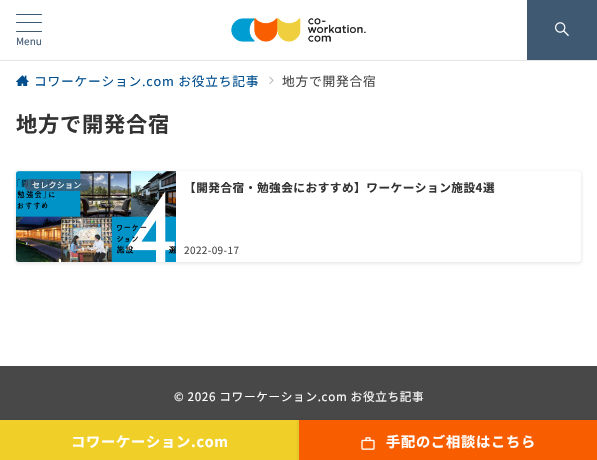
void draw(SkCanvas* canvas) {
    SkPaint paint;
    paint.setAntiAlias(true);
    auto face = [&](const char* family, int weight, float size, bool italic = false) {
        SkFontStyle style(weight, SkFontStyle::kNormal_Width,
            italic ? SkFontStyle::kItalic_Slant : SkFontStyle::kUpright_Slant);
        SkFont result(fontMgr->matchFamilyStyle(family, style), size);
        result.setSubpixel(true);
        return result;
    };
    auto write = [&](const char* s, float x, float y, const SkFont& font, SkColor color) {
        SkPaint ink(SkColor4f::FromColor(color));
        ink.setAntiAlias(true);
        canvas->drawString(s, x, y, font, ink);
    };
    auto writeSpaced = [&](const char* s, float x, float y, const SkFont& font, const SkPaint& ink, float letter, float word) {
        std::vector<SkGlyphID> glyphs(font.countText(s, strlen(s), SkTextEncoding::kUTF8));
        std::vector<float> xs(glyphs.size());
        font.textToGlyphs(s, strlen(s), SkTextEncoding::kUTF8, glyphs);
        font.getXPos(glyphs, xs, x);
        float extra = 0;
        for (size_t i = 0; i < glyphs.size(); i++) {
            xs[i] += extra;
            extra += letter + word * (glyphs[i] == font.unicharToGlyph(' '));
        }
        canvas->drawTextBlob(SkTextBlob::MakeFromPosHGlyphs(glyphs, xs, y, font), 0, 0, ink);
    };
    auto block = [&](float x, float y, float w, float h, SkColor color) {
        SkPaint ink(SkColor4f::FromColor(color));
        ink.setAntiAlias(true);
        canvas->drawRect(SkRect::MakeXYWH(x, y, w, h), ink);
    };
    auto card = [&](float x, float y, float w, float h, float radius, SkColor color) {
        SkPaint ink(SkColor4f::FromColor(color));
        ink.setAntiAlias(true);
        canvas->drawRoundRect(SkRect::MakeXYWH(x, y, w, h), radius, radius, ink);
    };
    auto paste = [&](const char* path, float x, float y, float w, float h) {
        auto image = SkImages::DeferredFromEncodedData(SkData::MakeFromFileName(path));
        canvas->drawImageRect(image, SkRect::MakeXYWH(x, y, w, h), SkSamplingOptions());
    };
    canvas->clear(SK_ColorWHITE);
    block(0, 60, 597, 1, SkColorSetRGB(230, 230, 230));
    card(16, 14, 26, 1, 0.5f, SkColorSetRGB(63, 89, 115));
    card(16, 22, 26, 1, 0.5f, SkColorSetRGB(63, 89, 115));
    card(16, 31, 26, 1, 0.5f, SkColorSetRGB(63, 89, 115));
    auto kFont1 = face("Noto Sans JP", 400, 10);
    write("Menu", 16, 45, kFont1, SkColorSetRGB(63, 89, 115));
    paste("pic1.png", 231, 18, 135, 24);
    block(527, 0, 70, 60, SkColorSetRGB(63, 89, 115));
    paste("pic2.png", 555, 22, 14, 15);
    paste("pic3.png", 16, 75, 13, 11);
    auto kFont2 = face("Noto Sans JP", 400, 12.75f);
    paint.setColor(SkColorSetRGB(0, 78, 142));
    writeSpaced("コワーケーション.com お役立ち記事", 34, 86, kFont2, paint, 0.75f, 0);
    paste("pic4.png", 269, 76, 5, 8);
    paint.setColor(SkColorSetRGB(72, 72, 72));
    writeSpaced("地方で開発合宿", 282, 86, kFont2, paint, 0.75f, 0);
    auto kFont3 = face("Noto Sans JP", 700, 21.25f);
    paint.setColor(SkColorSetRGB(51, 51, 51));
    writeSpaced("地方で開発合宿", 16, 132, kFont3, paint, 0.75f, 0);
    paint.setColor(SkColorSetARGB(20, 0, 0, 0));
    paint.setMaskFilter(SkMaskFilter::MakeBlur(kNormal_SkBlurStyle, 1.5f));
    canvas->drawRoundRect(SkRect::MakeXYWH(15, 171, 567, 93), 4, 4, paint);
    paint.setMaskFilter(nullptr);
    card(16, 171, 565, 91, 3, SK_ColorWHITE);
    paste("pic5.png", 16, 171, 160, 91);
    card(24, 179, 66, 12, 6, SkColorSetARGB(204, 63, 89, 115));
    auto kFont4 = face("Noto Sans JP", 400, 8);
    paint.setColor(SK_ColorWHITE);
    writeSpaced("セレクション", 32, 188, kFont4, paint, 0.25f, 0);
    auto kFont5 = face("Noto Sans JP", 700, 11.65f);
    paint.setColor(SkColorSetRGB(51, 51, 51));
    writeSpaced("【開発合宿・勉強会におすすめ】ワーケーション施設4選", 184, 192, kFont5, paint, 0.5f, 0);
    paint.setColor(SkColorSetRGB(72, 72, 72));
    writeSpaced("2022-09-17", 184, 254, kFont1, paint, 0.4f, 0);
    block(0, 366, 597, 54, SkColorSetRGB(72, 72, 72));
    auto kFont6 = face("Noto Sans JP", 400, 11.65f);
    paint.setColor(SK_ColorWHITE);
    writeSpaced("© 2026 コワーケーション.com お役立ち記事", 174, 401, kFont6, paint, 0.65f, 0);
    paint.setColor(SkColorSetARGB(20, 0, 0, 0));
    paint.setMaskFilter(SkMaskFilter::MakeBlur(kNormal_SkBlurStyle, 1.5f));
    canvas->drawRect(SkRect::MakeXYWH(-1, 420, 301, 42), paint);
    paint.setMaskFilter(nullptr);
    block(0, 420, 299, 40, SkColorSetRGB(240, 208, 40));
    auto kFont7 = face("Noto Sans JP", 700, 14.25f);
    paint.setColor(SK_ColorWHITE);
    writeSpaced("コワーケーション.com", 71, 447, kFont7, paint, 0.75f, 0);
    paint.setColor(SkColorSetARGB(20, 0, 0, 0));
    paint.setMaskFilter(SkMaskFilter::MakeBlur(kNormal_SkBlurStyle, 1.5f));
    canvas->drawRect(SkRect::MakeXYWH(298, 420, 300, 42), paint);
    paint.setMaskFilter(nullptr);
    block(299, 420, 298, 40, SkColorSetRGB(248, 94, 0));
    paste("pic6.png", 361, 437, 14, 13);
    paint.setColor(SK_ColorWHITE);
    writeSpaced("手配のご相談はこちら", 386, 447, kFont7, paint, 0.75f, 0);
}
